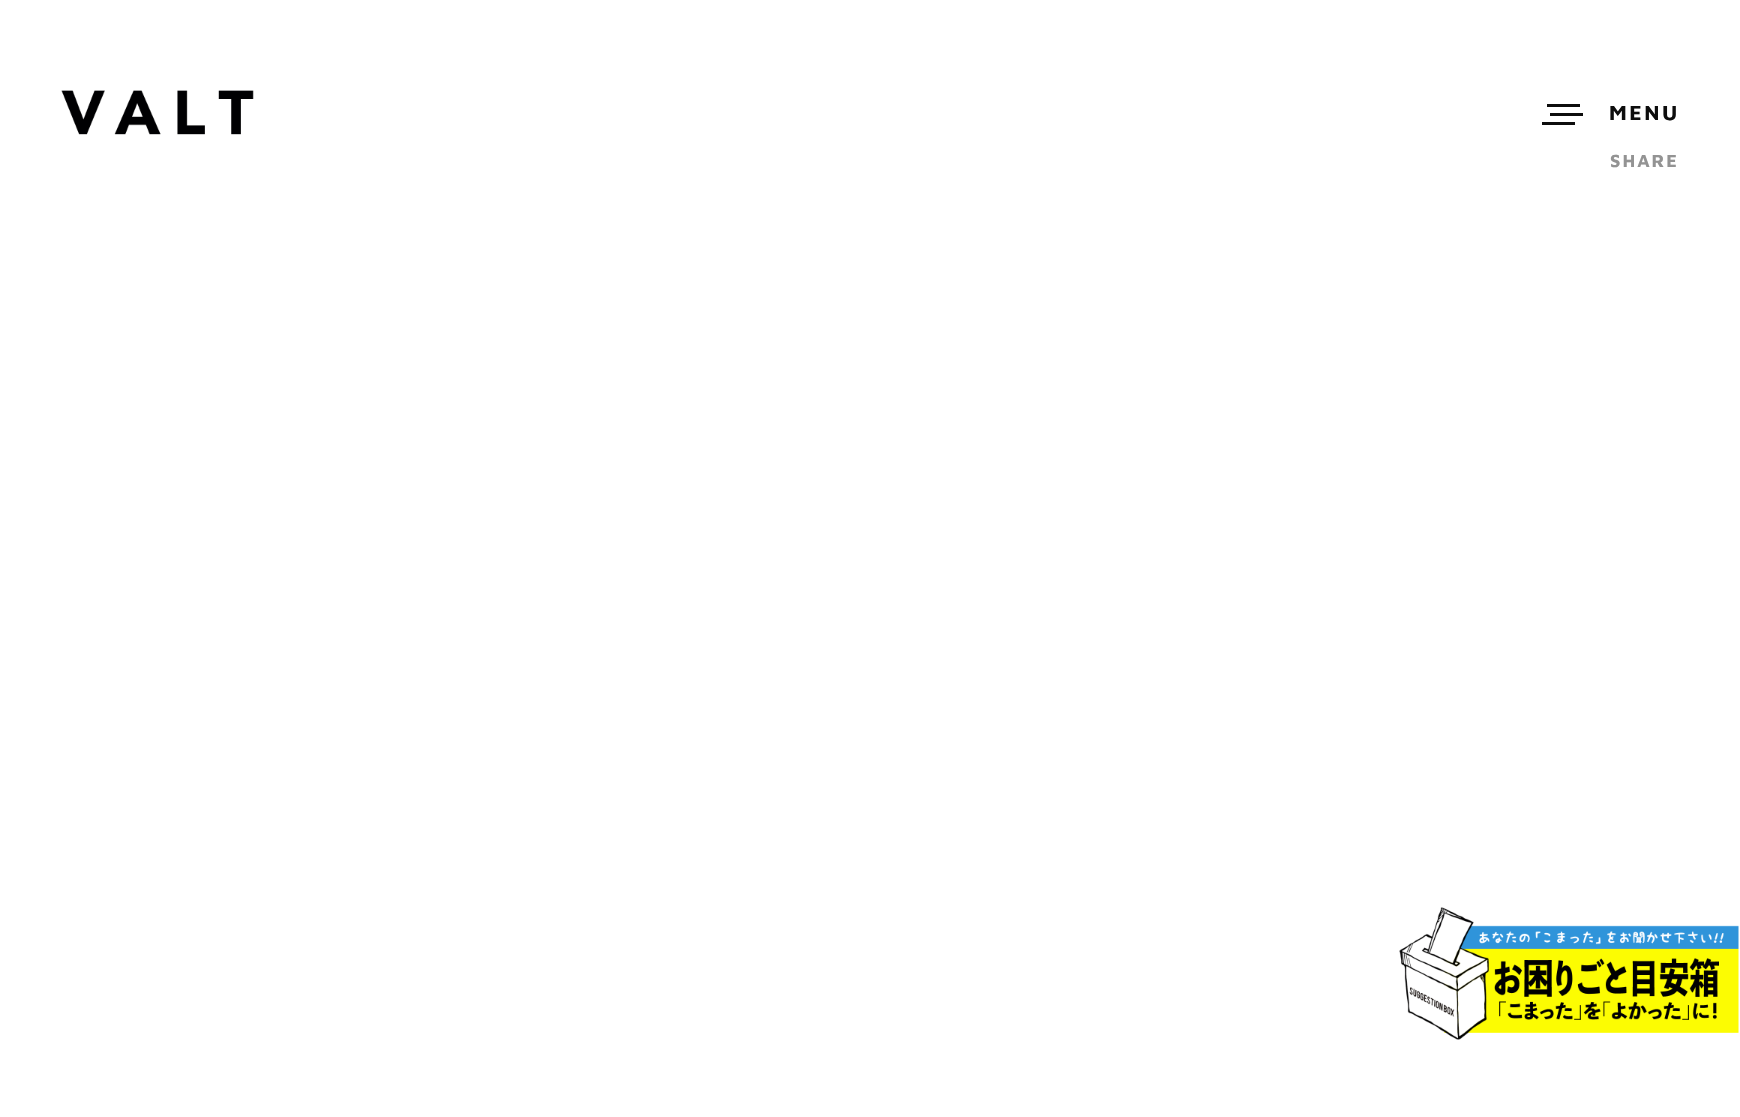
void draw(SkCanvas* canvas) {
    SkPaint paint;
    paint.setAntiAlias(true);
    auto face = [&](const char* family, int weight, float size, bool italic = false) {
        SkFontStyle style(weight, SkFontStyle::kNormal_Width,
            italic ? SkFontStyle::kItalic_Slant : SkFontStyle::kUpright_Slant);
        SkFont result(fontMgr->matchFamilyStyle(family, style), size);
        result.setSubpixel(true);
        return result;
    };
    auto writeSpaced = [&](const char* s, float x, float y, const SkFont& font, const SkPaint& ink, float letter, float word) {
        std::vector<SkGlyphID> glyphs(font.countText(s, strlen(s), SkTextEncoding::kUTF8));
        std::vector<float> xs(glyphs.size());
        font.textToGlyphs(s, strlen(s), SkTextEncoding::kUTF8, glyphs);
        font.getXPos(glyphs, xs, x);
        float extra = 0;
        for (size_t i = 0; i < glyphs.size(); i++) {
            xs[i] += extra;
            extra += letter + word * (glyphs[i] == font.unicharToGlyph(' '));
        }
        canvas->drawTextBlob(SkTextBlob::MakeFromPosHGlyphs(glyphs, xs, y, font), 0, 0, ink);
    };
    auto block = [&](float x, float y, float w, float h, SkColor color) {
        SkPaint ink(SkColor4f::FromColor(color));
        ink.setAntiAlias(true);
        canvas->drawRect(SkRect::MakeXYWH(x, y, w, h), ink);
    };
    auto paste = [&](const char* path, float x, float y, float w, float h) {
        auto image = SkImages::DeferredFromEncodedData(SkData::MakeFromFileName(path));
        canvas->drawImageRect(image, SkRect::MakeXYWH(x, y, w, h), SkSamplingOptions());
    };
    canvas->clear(SK_ColorWHITE);
    paste("pic1.png", 61, 90, 193, 45);
    block(1550, 113, 33, 3, SkColorSetRGB(13, 13, 13));
    block(1547, 104, 33, 3, SkColorSetRGB(13, 13, 13));
    block(1542, 122, 33, 3, SkColorSetRGB(13, 13, 13));
    auto kFont1 = face("Maven Pro", 700, 21);
    paint.setColor(SkColorSetRGB(13, 13, 13));
    writeSpaced("MENU", 1609, 120, kFont1, paint, 2.5f, 0);
    auto kFont2 = face("Maven Pro", 700, 18);
    paint.setColor(SkColorSetRGB(147, 147, 147));
    writeSpaced("SHARE", 1610, 167, kFont2, paint, 2, 0);
    paste("pic2.png", 1399, 907, 340, 133);
}
